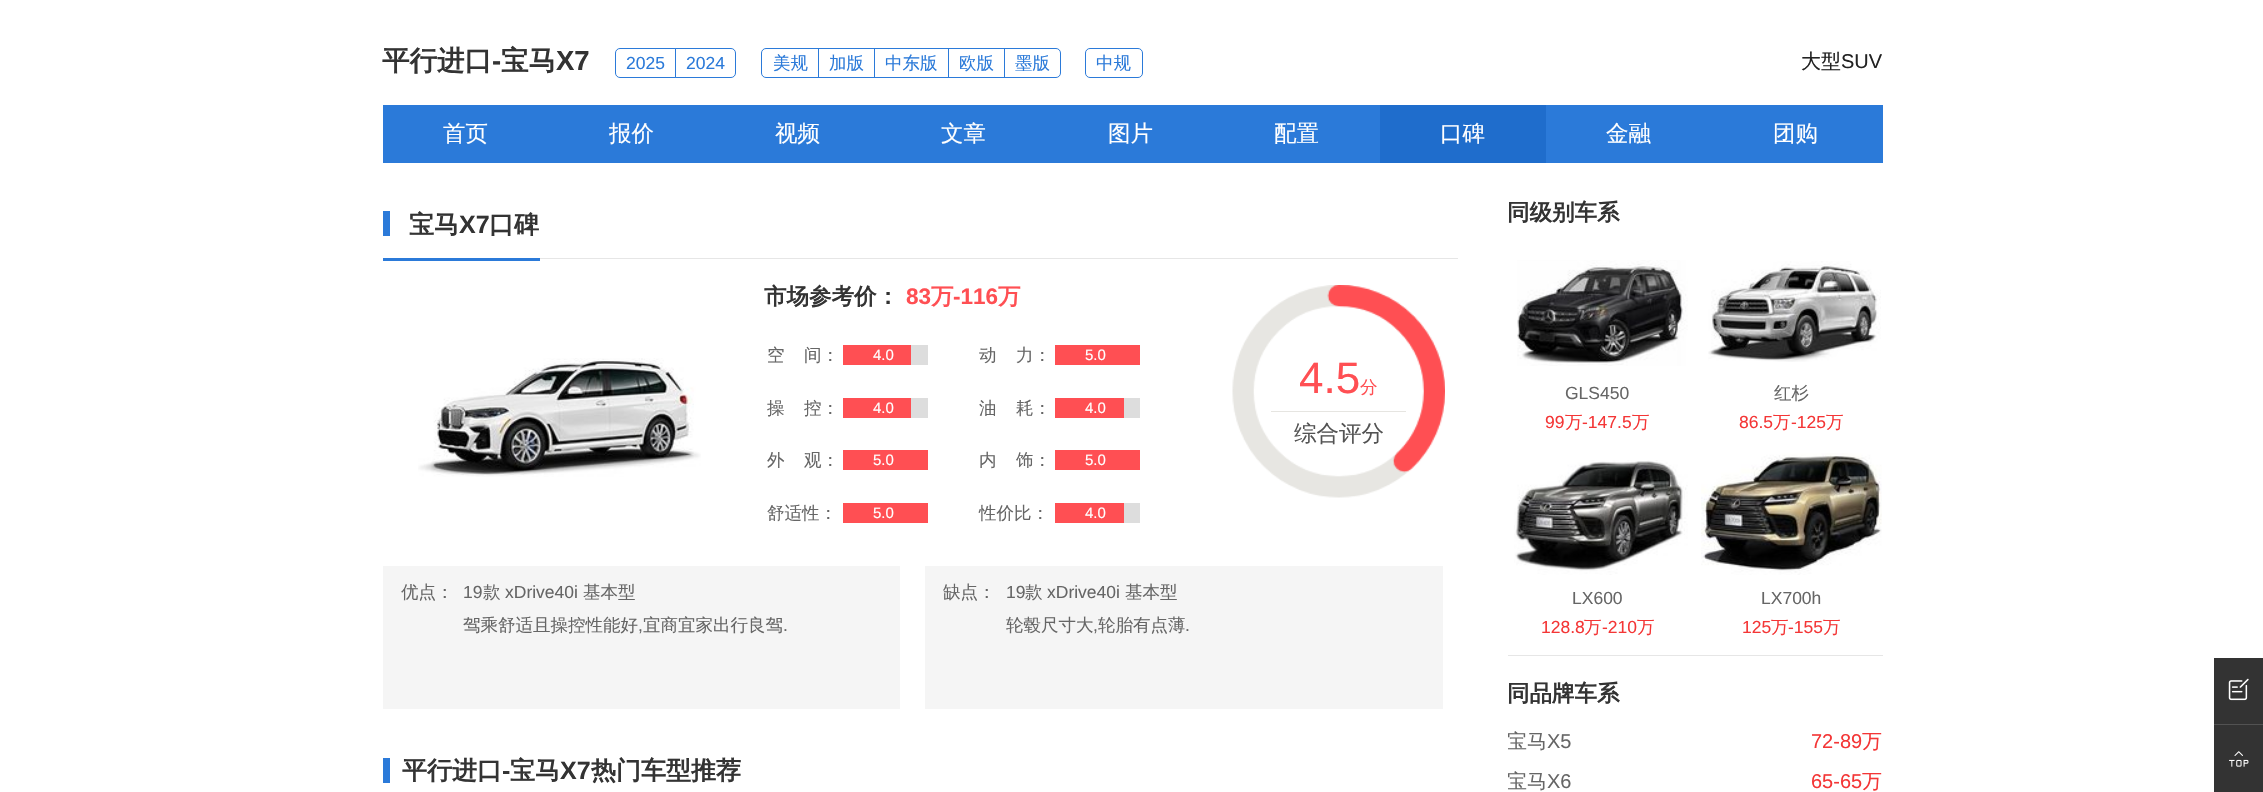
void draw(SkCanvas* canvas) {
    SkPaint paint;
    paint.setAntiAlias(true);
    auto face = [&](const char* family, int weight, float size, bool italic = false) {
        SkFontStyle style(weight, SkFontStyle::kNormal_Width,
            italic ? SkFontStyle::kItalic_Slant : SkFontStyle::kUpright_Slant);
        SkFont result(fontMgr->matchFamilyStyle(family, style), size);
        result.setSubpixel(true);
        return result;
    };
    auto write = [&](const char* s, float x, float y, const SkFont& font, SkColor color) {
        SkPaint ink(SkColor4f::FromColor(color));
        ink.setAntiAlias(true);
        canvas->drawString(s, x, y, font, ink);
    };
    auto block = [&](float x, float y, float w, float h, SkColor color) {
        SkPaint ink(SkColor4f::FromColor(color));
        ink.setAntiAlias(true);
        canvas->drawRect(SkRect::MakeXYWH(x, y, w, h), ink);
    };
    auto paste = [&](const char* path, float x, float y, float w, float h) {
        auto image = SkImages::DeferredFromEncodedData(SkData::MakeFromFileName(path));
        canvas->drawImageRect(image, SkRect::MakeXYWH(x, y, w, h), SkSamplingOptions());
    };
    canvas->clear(SK_ColorWHITE);
    auto kFont1 = face("WenQuanYi Zen Hei", 700, 27.5f);
    write("平行进口", 382, 70, kFont1, SkColorSetRGB(51, 51, 51));
    auto kFont2 = face("Liberation Sans", 700, 27.5f);
    write("-", 492, 70, kFont2, SkColorSetRGB(51, 51, 51));
    write("宝马", 501, 70, kFont1, SkColorSetRGB(51, 51, 51));
    write("X7", 556, 70, kFont2, SkColorSetRGB(51, 51, 51));
    paint.setStyle(SkPaint::kStroke_Style);
    paint.setStrokeWidth(1);
    paint.setColor(SkColorSetRGB(43, 122, 217));
    canvas->drawPath(SkPathBuilder().moveTo(620, 48.5f).lineTo(675.5f, 48.5f).lineTo(675.5f, 77.5f).lineTo(620, 77.5f).cubicTo(617.5f, 77.5f, 615.5f, 75.5f, 615.5f, 73).lineTo(615.5f, 53).cubicTo(615.5f, 50.5f, 617.5f, 48.5f, 620, 48.5f).close().detach(), paint);
    auto kFont3 = face("Liberation Sans", 400, 17.5f);
    write("2025", 626, 69, kFont3, SkColorSetRGB(43, 122, 217));
    canvas->drawPath(SkPathBuilder().moveTo(675.5f, 48.5f).lineTo(731, 48.5f).cubicTo(733.5f, 48.5f, 735.5f, 50.5f, 735.5f, 53).lineTo(735.5f, 73).cubicTo(735.5f, 75.5f, 733.5f, 77.5f, 731, 77.5f).lineTo(675.5f, 77.5f).close().detach(), paint);
    write("2024", 686, 69, kFont3, SkColorSetRGB(43, 122, 217));
    canvas->drawPath(SkPathBuilder().moveTo(766, 48.5f).lineTo(818.5f, 48.5f).lineTo(818.5f, 77.5f).lineTo(766, 77.5f).cubicTo(763.5f, 77.5f, 761.5f, 75.5f, 761.5f, 73).lineTo(761.5f, 53).cubicTo(761.5f, 50.5f, 763.5f, 48.5f, 766, 48.5f).close().detach(), paint);
    auto kFont4 = face("WenQuanYi Zen Hei", 500, 17.5f);
    write("美规", 773, 69, kFont4, SkColorSetRGB(43, 122, 217));
    canvas->drawRect(SkRect::MakeXYWH(818.5f, 48.5f, 56, 29), paint);
    write("加版", 829, 69, kFont4, SkColorSetRGB(43, 122, 217));
    canvas->drawRect(SkRect::MakeXYWH(874.5f, 48.5f, 74, 29), paint);
    write("中东版", 885, 69, kFont4, SkColorSetRGB(43, 122, 217));
    canvas->drawRect(SkRect::MakeXYWH(948.5f, 48.5f, 56, 29), paint);
    write("欧版", 959, 69, kFont4, SkColorSetRGB(43, 122, 217));
    canvas->drawPath(SkPathBuilder().moveTo(1004.5f, 48.5f).lineTo(1056, 48.5f).cubicTo(1058.5f, 48.5f, 1060.5f, 50.5f, 1060.5f, 53).lineTo(1060.5f, 73).cubicTo(1060.5f, 75.5f, 1058.5f, 77.5f, 1056, 77.5f).lineTo(1004.5f, 77.5f).close().detach(), paint);
    write("墨版", 1015, 69, kFont4, SkColorSetRGB(43, 122, 217));
    canvas->drawRoundRect(SkRect::MakeXYWH(1085.5f, 48.5f, 57, 29), 4.5f, 4.5f, paint);
    write("中规", 1096, 69, kFont4, SkColorSetRGB(43, 122, 217));
    auto kFont5 = face("WenQuanYi Zen Hei", 500, 20);
    write("大型", 1801, 68, kFont5, SkColorSetRGB(34, 34, 34));
    auto kFont6 = face("Liberation Sans", 400, 20);
    write("SUV", 1841, 68, kFont6, SkColorSetRGB(34, 34, 34));
    block(383, 105, 1500, 58, SkColorSetRGB(43, 122, 217));
    auto kFont7 = face("WenQuanYi Zen Hei", 500, 22.5f);
    write("首页", 443, 141, kFont7, SK_ColorWHITE);
    write("报价", 609, 141, kFont7, SK_ColorWHITE);
    write("视频", 775, 141, kFont7, SK_ColorWHITE);
    write("文章", 941, 141, kFont7, SK_ColorWHITE);
    write("图片", 1108, 141, kFont7, SK_ColorWHITE);
    write("配置", 1274, 141, kFont7, SK_ColorWHITE);
    block(1380, 105, 166, 58, SkColorSetRGB(31, 109, 204));
    write("口碑", 1440, 141, kFont7, SK_ColorWHITE);
    write("金融", 1606, 141, kFont7, SK_ColorWHITE);
    write("团购", 1773, 141, kFont7, SK_ColorWHITE);
    block(540, 258, 918, 1, SkColorSetRGB(230, 230, 230));
    block(383, 258, 157, 3, SkColorSetRGB(43, 122, 217));
    block(383, 211, 7, 25, SkColorSetRGB(43, 122, 217));
    auto kFont8 = face("WenQuanYi Zen Hei", 700, 25);
    write("宝马", 409, 233, kFont8, SkColorSetRGB(51, 51, 51));
    auto kFont9 = face("Liberation Sans", 700, 25);
    write("X7", 459, 233, kFont9, SkColorSetRGB(51, 51, 51));
    write("口碑", 489, 233, kFont8, SkColorSetRGB(51, 51, 51));
    paste("pic1.png", 418, 358, 283, 119);
    auto kFont10 = face("WenQuanYi Zen Hei", 700, 22.5f);
    write("市场参考价：", 764, 304, kFont10, SkColorSetRGB(51, 51, 51));
    auto kFont11 = face("Liberation Sans", 700, 22.5f);
    write("83", 906, 304, kFont11, SkColorSetRGB(255, 79, 83));
    write("万", 931, 304, kFont10, SkColorSetRGB(255, 79, 83));
    write("-116", 953, 304, kFont11, SkColorSetRGB(255, 79, 83));
    write("万", 998, 304, kFont10, SkColorSetRGB(255, 79, 83));
    write("空", 767, 361, kFont4, SkColorSetRGB(102, 102, 102));
    write("间：", 804, 361, kFont4, SkColorSetRGB(102, 102, 102));
    block(911, 345, 17, 20, SkColorSetRGB(221, 221, 221));
    block(843, 345, 68, 20, SkColorSetRGB(255, 79, 83));
    auto kFont12 = face("Liberation Sans", 400, 15);
    write("4.0", 873, 360, kFont12, SK_ColorWHITE);
    write("动", 979, 361, kFont4, SkColorSetRGB(102, 102, 102));
    write("力：", 1016, 361, kFont4, SkColorSetRGB(102, 102, 102));
    block(1055, 345, 85, 20, SkColorSetRGB(255, 79, 83));
    write("5.0", 1085, 360, kFont12, SK_ColorWHITE);
    write("操", 767, 414, kFont4, SkColorSetRGB(102, 102, 102));
    write("控：", 804, 414, kFont4, SkColorSetRGB(102, 102, 102));
    block(911, 398, 17, 20, SkColorSetRGB(221, 221, 221));
    block(843, 398, 68, 20, SkColorSetRGB(255, 79, 83));
    write("4.0", 873, 413, kFont12, SK_ColorWHITE);
    write("油", 979, 414, kFont4, SkColorSetRGB(102, 102, 102));
    write("耗：", 1016, 414, kFont4, SkColorSetRGB(102, 102, 102));
    block(1124, 398, 16, 20, SkColorSetRGB(221, 221, 221));
    block(1055, 398, 69, 20, SkColorSetRGB(255, 79, 83));
    write("4.0", 1085, 413, kFont12, SK_ColorWHITE);
    write("外", 767, 466, kFont4, SkColorSetRGB(102, 102, 102));
    write("观：", 804, 466, kFont4, SkColorSetRGB(102, 102, 102));
    block(843, 450, 85, 20, SkColorSetRGB(255, 79, 83));
    write("5.0", 873, 465, kFont12, SK_ColorWHITE);
    write("内", 979, 466, kFont4, SkColorSetRGB(102, 102, 102));
    write("饰：", 1016, 466, kFont4, SkColorSetRGB(102, 102, 102));
    block(1055, 450, 85, 20, SkColorSetRGB(255, 79, 83));
    write("5.0", 1085, 465, kFont12, SK_ColorWHITE);
    write("舒适性：", 767, 519, kFont4, SkColorSetRGB(102, 102, 102));
    block(843, 503, 85, 20, SkColorSetRGB(255, 79, 83));
    write("5.0", 873, 518, kFont12, SK_ColorWHITE);
    write("性价比：", 979, 519, kFont4, SkColorSetRGB(102, 102, 102));
    block(1124, 503, 16, 20, SkColorSetRGB(221, 221, 221));
    block(1055, 503, 69, 20, SkColorSetRGB(255, 79, 83));
    write("4.0", 1085, 518, kFont12, SK_ColorWHITE);
    paste("pic2.png", 1232, 285, 213, 213);
    block(1271, 411, 135, 1, SkColorSetRGB(230, 229, 225));
    auto kFont13 = face("Liberation Sans", 400, 44);
    write("4.5", 1299, 393, kFont13, SkColorSetRGB(255, 79, 83));
    write("分", 1360, 393, kFont4, SkColorSetRGB(255, 79, 83));
    write("综合评分", 1294, 441, kFont7, SkColorSetRGB(83, 83, 83));
    block(383, 566, 517, 143, SkColorSetRGB(245, 245, 245));
    write("优点：", 401, 598, kFont4, SkColorSetRGB(102, 102, 102));
    write("19", 463, 598, kFont3, SkColorSetRGB(102, 102, 102));
    write("款", 483, 598, kFont4, SkColorSetRGB(102, 102, 102));
    write("xDrive40i", 505, 598, kFont3, SkColorSetRGB(102, 102, 102));
    write("基本型", 583, 598, kFont4, SkColorSetRGB(102, 102, 102));
    write("驾乘舒适且操控性能好", 463, 631, kFont4, SkColorSetRGB(102, 102, 102));
    write(",", 638, 631, kFont3, SkColorSetRGB(102, 102, 102));
    write("宜商宜家出行良驾", 643, 631, kFont4, SkColorSetRGB(102, 102, 102));
    write(".", 783, 631, kFont3, SkColorSetRGB(102, 102, 102));
    block(925, 566, 518, 143, SkColorSetRGB(245, 245, 245));
    write("缺点：", 943, 598, kFont4, SkColorSetRGB(102, 102, 102));
    write("19", 1006, 598, kFont3, SkColorSetRGB(102, 102, 102));
    write("款", 1025, 598, kFont4, SkColorSetRGB(102, 102, 102));
    write("xDrive40i", 1047, 598, kFont3, SkColorSetRGB(102, 102, 102));
    write("基本型", 1125, 598, kFont4, SkColorSetRGB(102, 102, 102));
    write("轮毂尺寸大", 1006, 631, kFont4, SkColorSetRGB(102, 102, 102));
    write(",", 1093, 631, kFont3, SkColorSetRGB(102, 102, 102));
    write("轮胎有点薄", 1098, 631, kFont4, SkColorSetRGB(102, 102, 102));
    write(".", 1185, 631, kFont3, SkColorSetRGB(102, 102, 102));
    block(383, 758, 7, 25, SkColorSetRGB(43, 122, 217));
    write("平行进口", 402, 779, kFont8, SkColorSetRGB(51, 51, 51));
    write("-", 502, 779, kFont9, SkColorSetRGB(51, 51, 51));
    write("宝马", 510, 779, kFont8, SkColorSetRGB(51, 51, 51));
    write("X7", 560, 779, kFont9, SkColorSetRGB(51, 51, 51));
    write("热门车型推荐", 591, 779, kFont8, SkColorSetRGB(51, 51, 51));
    write("同级别车系", 1507, 220, kFont10, SkColorSetRGB(51, 51, 51));
    paste("pic3.png", 1517, 260, 171, 106);
    write("GLS450", 1565, 399, kFont3, SkColorSetRGB(102, 102, 102));
    write("99", 1545, 428, kFont3, SkColorSetRGB(244, 54, 54));
    write("万", 1565, 428, kFont4, SkColorSetRGB(244, 54, 54));
    write("-147.5", 1582, 428, kFont3, SkColorSetRGB(244, 54, 54));
    write("万", 1632, 428, kFont4, SkColorSetRGB(244, 54, 54));
    paste("pic4.png", 1708, 261, 173, 101);
    write("红杉", 1774, 399, kFont4, SkColorSetRGB(102, 102, 102));
    write("86.5", 1739, 428, kFont3, SkColorSetRGB(244, 54, 54));
    write("万", 1773, 428, kFont4, SkColorSetRGB(244, 54, 54));
    write("-125", 1791, 428, kFont3, SkColorSetRGB(244, 54, 54));
    write("万", 1826, 428, kFont4, SkColorSetRGB(244, 54, 54));
    paste("pic5.png", 1514, 460, 174, 115);
    write("LX600", 1572, 604, kFont3, SkColorSetRGB(102, 102, 102));
    write("128.8", 1541, 633, kFont3, SkColorSetRGB(244, 54, 54));
    write("万", 1584, 633, kFont4, SkColorSetRGB(244, 54, 54));
    write("-210", 1602, 633, kFont3, SkColorSetRGB(244, 54, 54));
    write("万", 1637, 633, kFont4, SkColorSetRGB(244, 54, 54));
    paste("pic6.png", 1701, 453, 181, 122);
    write("LX700h", 1761, 604, kFont3, SkColorSetRGB(102, 102, 102));
    write("125", 1742, 633, kFont3, SkColorSetRGB(244, 54, 54));
    write("万", 1771, 633, kFont4, SkColorSetRGB(244, 54, 54));
    write("-155", 1788, 633, kFont3, SkColorSetRGB(244, 54, 54));
    write("万", 1823, 633, kFont4, SkColorSetRGB(244, 54, 54));
    block(1508, 655, 375, 1, SkColorSetRGB(230, 230, 230));
    write("同品牌车系", 1507, 701, kFont10, SkColorSetRGB(51, 51, 51));
    canvas->save();
    canvas->clipRect(SkRect::MakeXYWH(1508, 721, 221, 40));
    write("宝马", 1507, 748, kFont5, SkColorSetRGB(102, 102, 102));
    canvas->restore();
    write("X5", 1547, 748, kFont6, SkColorSetRGB(102, 102, 102));
    write("72-89", 1811, 748, kFont6, SkColorSetRGB(244, 54, 54));
    write("万", 1862, 748, kFont5, SkColorSetRGB(244, 54, 54));
    canvas->save();
    canvas->clipRect(SkRect::MakeXYWH(1508, 761, 221, 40));
    write("宝马", 1507, 788, kFont5, SkColorSetRGB(102, 102, 102));
    canvas->restore();
    write("X6", 1547, 788, kFont6, SkColorSetRGB(102, 102, 102));
    write("65-65", 1811, 788, kFont6, SkColorSetRGB(244, 54, 54));
    write("万", 1862, 788, kFont5, SkColorSetRGB(244, 54, 54));
    block(2214, 658, 49, 66, SkColorSetRGB(51, 51, 51));
    block(2214, 724, 49, 1, SkColorSetRGB(82, 82, 82));
    paste("pic7.png", 2228, 678, 21, 23);
    block(2214, 725, 49, 67, SkColorSetRGB(51, 51, 51));
    paste("pic8.png", 2229, 751, 20, 16);
}
